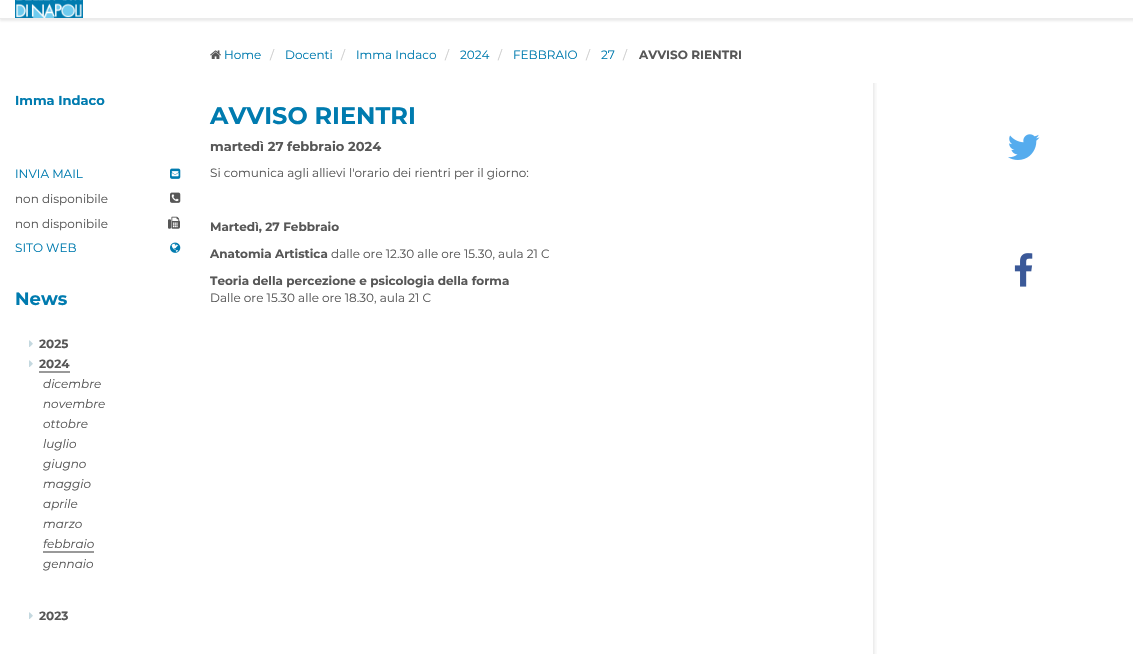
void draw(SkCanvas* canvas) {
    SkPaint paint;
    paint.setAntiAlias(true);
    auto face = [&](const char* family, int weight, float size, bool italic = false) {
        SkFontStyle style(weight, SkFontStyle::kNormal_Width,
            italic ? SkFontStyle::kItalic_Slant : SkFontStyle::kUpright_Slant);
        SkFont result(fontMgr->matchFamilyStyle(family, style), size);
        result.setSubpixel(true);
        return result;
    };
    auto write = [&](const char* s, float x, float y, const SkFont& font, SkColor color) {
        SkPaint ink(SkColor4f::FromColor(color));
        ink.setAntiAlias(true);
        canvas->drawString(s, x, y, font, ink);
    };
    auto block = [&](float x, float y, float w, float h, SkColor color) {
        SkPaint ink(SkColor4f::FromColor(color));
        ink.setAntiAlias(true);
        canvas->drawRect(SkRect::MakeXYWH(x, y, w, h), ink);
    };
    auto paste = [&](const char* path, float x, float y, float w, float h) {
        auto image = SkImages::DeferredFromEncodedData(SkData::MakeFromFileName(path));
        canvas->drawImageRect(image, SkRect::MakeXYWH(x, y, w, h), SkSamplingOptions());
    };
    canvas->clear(SK_ColorWHITE);
    canvas->save();
    canvas->clipRect(SkRect::MakeXYWH(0, 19, 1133, 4));
    paint.setColor(SkColorSetRGB(235, 235, 235));
    paint.setMaskFilter(SkMaskFilter::MakeBlur(kNormal_SkBlurStyle, 1));
    canvas->drawRect(SkRect::MakeXYWH(0, -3, 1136, 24), paint);
    paint.setMaskFilter(nullptr);
    canvas->restore();
    block(0, 18, 1133, 1, SkColorSetRGB(235, 235, 235));
    paste("pic1.png", 15, 0, 68, 18);
    paste("pic2.png", 210, 50, 11, 9);
    auto kFont1 = face("Montserrat", 400, 12);
    write("Home", 224, 59, kFont1, SkColorSetRGB(0, 123, 175));
    write("/", 270, 59, kFont1, SkColorSetRGB(204, 204, 204));
    write("Docenti", 285, 59, kFont1, SkColorSetRGB(0, 123, 175));
    write("/", 341, 59, kFont1, SkColorSetRGB(204, 204, 204));
    write("Imma Indaco", 356, 59, kFont1, SkColorSetRGB(0, 123, 175));
    write("/", 445, 59, kFont1, SkColorSetRGB(204, 204, 204));
    write("2024", 460, 59, kFont1, SkColorSetRGB(0, 123, 175));
    write("/", 498, 59, kFont1, SkColorSetRGB(204, 204, 204));
    write("FEBBRAIO", 513, 59, kFont1, SkColorSetRGB(0, 123, 175));
    write("/", 586, 59, kFont1, SkColorSetRGB(204, 204, 204));
    write("27", 601, 59, kFont1, SkColorSetRGB(0, 123, 175));
    write("/", 623, 59, kFont1, SkColorSetRGB(204, 204, 204));
    auto kFont2 = face("Montserrat", 700, 12);
    write("AVVISO RIENTRI", 639, 59, kFont2, SkColorSetRGB(87, 87, 87));
    paste("pic3.png", 873, 83, 4, 571);
    auto kFont3 = face("Montserrat", 700, 13);
    write("Imma Indaco", 15, 105, kFont3, SkColorSetRGB(0, 123, 175));
    write("INVIA MAIL", 15, 178, kFont1, SkColorSetRGB(0, 123, 175));
    paste("pic4.png", 170, 168, 11, 11);
    write("non disponibile", 15, 203, kFont1, SkColorSetRGB(87, 87, 87));
    paste("pic5.png", 170, 192, 11, 11);
    write("non disponibile", 15, 228, kFont1, SkColorSetRGB(87, 87, 87));
    paste("pic6.png", 168, 216, 12, 13);
    write("SITO WEB", 15, 252, kFont1, SkColorSetRGB(0, 123, 175));
    paste("pic7.png", 170, 242, 11, 11);
    auto kFont4 = face("Montserrat", 700, 18);
    write("News", 15, 305, kFont4, SkColorSetRGB(0, 123, 175));
    paste("pic8.png", 29, 340, 4, 7);
    write("2025", 39, 348, kFont2, SkColorSetRGB(87, 87, 87));
    paste("pic8.png", 29, 360, 4, 7);
    write("2024", 39, 368, kFont2, SkColorSetRGB(87, 87, 87));
    block(39, 371, 31, 2, SkColorSetRGB(153, 153, 153));
    auto kFont5 = face("Montserrat", 400, 12, true);
    write("dicembre", 43, 388, kFont5, SkColorSetRGB(87, 87, 87));
    write("novembre", 43, 408, kFont5, SkColorSetRGB(87, 87, 87));
    write("ottobre", 43, 428, kFont5, SkColorSetRGB(87, 87, 87));
    write("luglio", 43, 448, kFont5, SkColorSetRGB(87, 87, 87));
    write("giugno", 43, 468, kFont5, SkColorSetRGB(87, 87, 87));
    write("maggio", 43, 488, kFont5, SkColorSetRGB(87, 87, 87));
    write("aprile", 43, 508, kFont5, SkColorSetRGB(87, 87, 87));
    write("marzo", 43, 528, kFont5, SkColorSetRGB(87, 87, 87));
    write("febbraio", 43, 548, kFont5, SkColorSetRGB(87, 87, 87));
    block(43, 551, 51, 2, SkColorSetRGB(153, 153, 153));
    write("gennaio", 43, 568, kFont5, SkColorSetRGB(87, 87, 87));
    paste("pic8.png", 29, 612, 4, 7);
    write("2023", 39, 620, kFont2, SkColorSetRGB(87, 87, 87));
    auto kFont6 = face("Montserrat", 700, 24);
    write("AVVISO RIENTRI", 210, 124, kFont6, SkColorSetRGB(0, 123, 175));
    write("martedì 27 febbraio 2024", 210, 151, kFont3, SkColorSetRGB(87, 87, 87));
    write("Si comunica agli allievi l'orario dei rientri per il giorno:", 210, 177, kFont1, SkColorSetRGB(87, 87, 87));
    write("Martedì, 27 Febbraio", 210, 231, kFont2, SkColorSetRGB(87, 87, 87));
    write("Anatomia Artistica", 210, 258, kFont2, SkColorSetRGB(87, 87, 87));
    write("dalle ore 12.30 alle ore 15.30, aula 21 C", 331, 258, kFont1, SkColorSetRGB(87, 87, 87));
    write("Teoria della percezione e psicologia della forma", 210, 285, kFont2, SkColorSetRGB(87, 87, 87));
    write("Dalle ore 15.30 alle ore 18.30, aula 21 C", 210, 302, kFont1, SkColorSetRGB(87, 87, 87));
    paste("pic9.png", 1008, 134, 32, 26);
    paste("pic10.png", 1014, 253, 19, 34);
}
